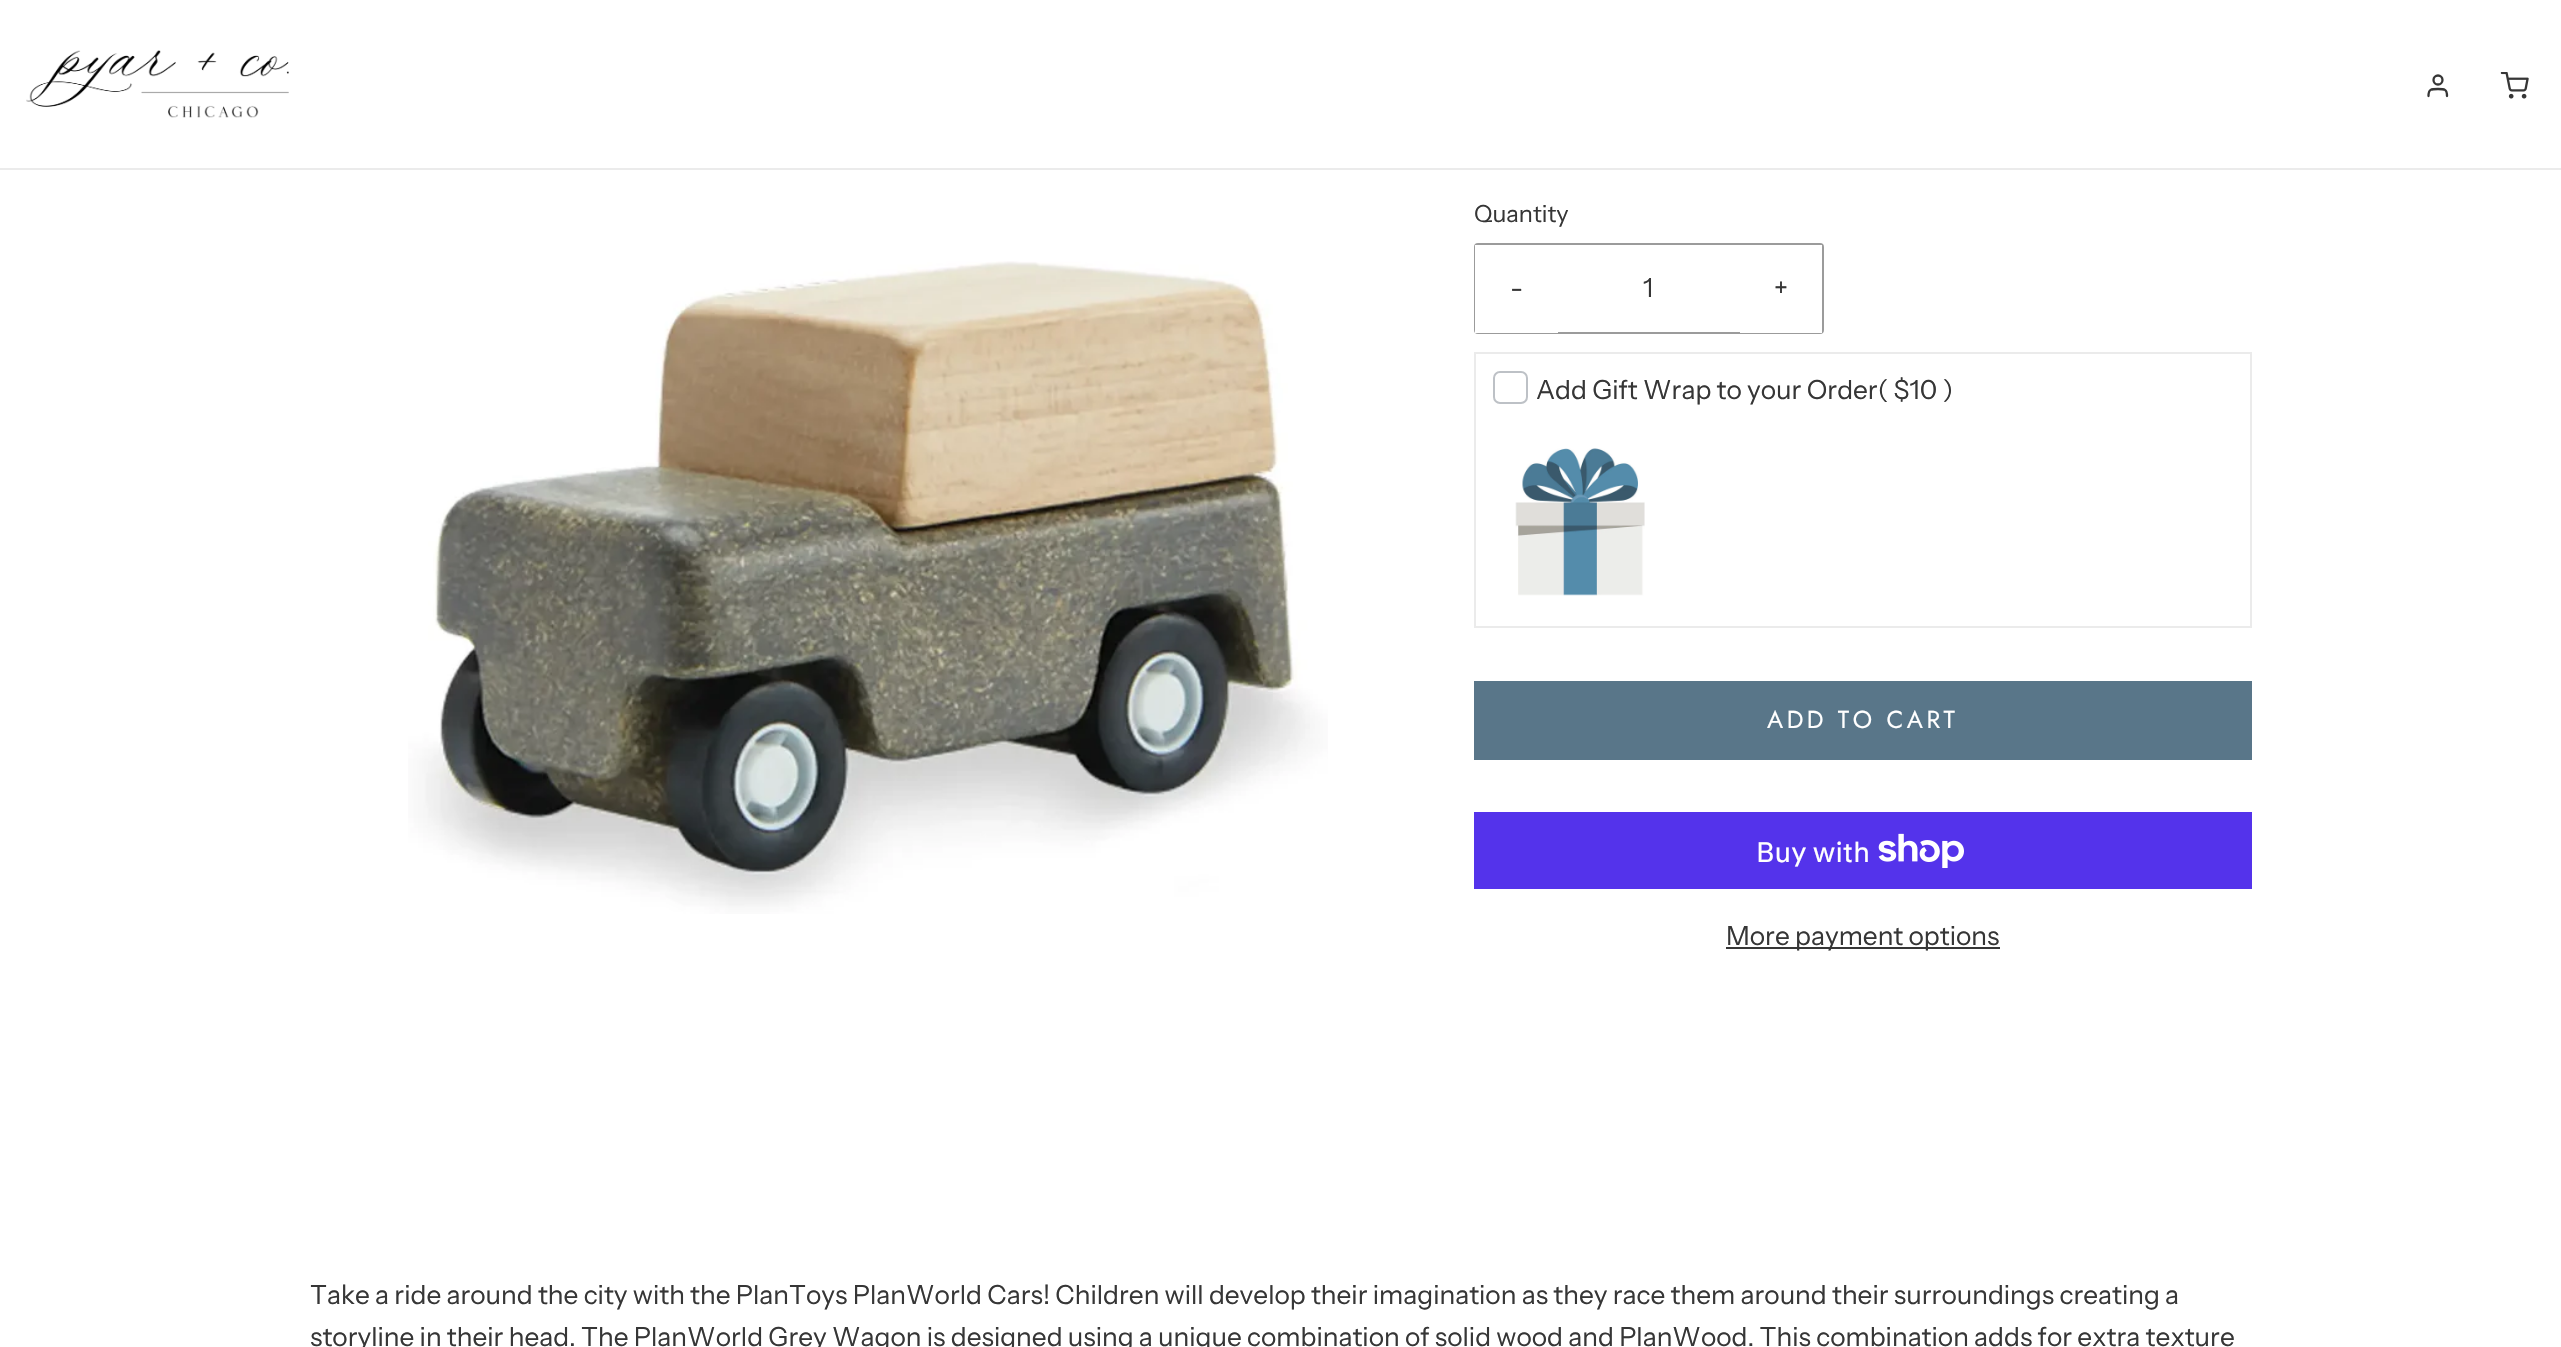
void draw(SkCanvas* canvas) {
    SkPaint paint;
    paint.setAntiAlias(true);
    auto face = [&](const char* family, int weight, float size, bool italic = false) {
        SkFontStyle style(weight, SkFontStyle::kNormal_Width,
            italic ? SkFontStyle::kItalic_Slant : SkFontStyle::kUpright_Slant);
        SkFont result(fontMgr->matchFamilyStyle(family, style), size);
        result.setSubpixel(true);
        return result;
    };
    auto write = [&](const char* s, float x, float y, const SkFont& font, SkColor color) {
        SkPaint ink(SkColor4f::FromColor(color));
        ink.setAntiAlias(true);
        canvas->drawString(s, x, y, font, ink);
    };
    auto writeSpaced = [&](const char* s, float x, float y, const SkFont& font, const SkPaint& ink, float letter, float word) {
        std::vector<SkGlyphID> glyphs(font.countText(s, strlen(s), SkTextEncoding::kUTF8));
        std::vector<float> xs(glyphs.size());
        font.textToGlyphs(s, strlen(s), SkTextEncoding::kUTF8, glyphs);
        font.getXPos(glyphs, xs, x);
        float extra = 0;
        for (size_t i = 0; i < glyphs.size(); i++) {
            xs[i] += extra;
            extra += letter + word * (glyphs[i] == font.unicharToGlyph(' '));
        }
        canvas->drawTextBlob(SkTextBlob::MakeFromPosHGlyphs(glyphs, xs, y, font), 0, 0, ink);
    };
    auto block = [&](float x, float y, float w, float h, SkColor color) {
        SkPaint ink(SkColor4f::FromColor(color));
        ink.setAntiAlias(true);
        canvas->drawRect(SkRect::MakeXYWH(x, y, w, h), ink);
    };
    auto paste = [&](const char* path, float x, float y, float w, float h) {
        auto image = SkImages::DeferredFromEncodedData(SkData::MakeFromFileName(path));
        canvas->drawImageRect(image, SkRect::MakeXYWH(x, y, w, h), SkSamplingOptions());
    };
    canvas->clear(SK_ColorWHITE);
    block(0, 168, 2561, 2, SkColorSetRGB(235, 235, 235));
    paste("pic1.png", 26, 50, 263, 68);
    paint.setStyle(SkPaint::kStroke_Style);
    paint.setStrokeWidth(2.3f);
    paint.setColor(SkColorSetRGB(54, 54, 54));
    canvas->drawCircle(2438, 80, 4.5f, paint);
    paint.setStrokeCap(SkPaint::kRound_Cap);
    paint.setStrokeJoin(SkPaint::kRound_Join);
    canvas->drawPath(SkPathBuilder().moveTo(2447, 96).cubicTo(2447, 89, 2444.5f, 89, 2438, 89).cubicTo(2431, 89, 2428.5f, 89, 2428.5f, 96).detach(), paint);
    paste("pic2.png", 2500, 72, 29, 27);
    paste("pic3.png", 408, 261, 920, 653);
    auto kFont1 = face("Instrument Sans", 400, 23.5f);
    write("Quantity", 1474, 222, kFont1, SkColorSetRGB(54, 54, 54));
    paint.setStrokeWidth(2);
    paint.setStrokeCap(SkPaint::kButt_Cap);
    paint.setStrokeJoin(SkPaint::kMiter_Join);
    paint.setColor(SkColorSetRGB(155, 155, 155));
    canvas->drawRoundRect(SkRect::MakeXYWH(1475, 244, 348, 89), 3, 3, paint);
    block(1475, 245, 83, 88, SK_ColorWHITE);
    auto kFont2 = face("Instrument Sans", 400, 26.25f);
    write("-", 1510, 297, kFont2, SkColorSetRGB(54, 54, 54));
    write("1", 1643, 297, kFont2, SkColorSetRGB(54, 54, 54));
    block(1740, 245, 82, 88, SK_ColorWHITE);
    write("+", 1774, 297, kFont2, SkColorSetRGB(54, 54, 54));
    paint.setColor(SkColorSetRGB(235, 235, 235));
    canvas->drawRect(SkRect::MakeXYWH(1475, 353, 776, 274), paint);
    paint.setColor(SkColorSetRGB(189, 193, 198));
    canvas->drawRoundRect(SkRect::MakeXYWH(1494, 372, 33, 31), 6, 6, paint);
    write("Add Gift Wrap to your Order( $10 )", 1536, 399, kFont2, SkColorSetRGB(54, 54, 54));
    paste("pic4.png", 1515, 448, 130, 148);
    block(1474, 681, 778, 79, SkColorSetRGB(89, 118, 137));
    auto kFont3 = face("Jost", 400, 24.5f);
    paint.setStyle(SkPaint::kFill_Style);
    paint.setColor(SK_ColorWHITE);
    writeSpaced("ADD TO CART", 1767, 728, kFont3, paint, 3.5f, 0);
    block(1474, 812, 778, 77, SkColorSetRGB(84, 51, 235));
    auto kFont4 = face("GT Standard", 400, 28);
    write("Buy with", 1756, 862, kFont4, SK_ColorWHITE);
    paste("pic5.png", 1878, 833, 86, 35);
    block(1726, 947, 274, 2, SkColorSetRGB(54, 54, 54));
    write("More payment options", 1726, 945, kFont2, SkColorSetRGB(54, 54, 54));
    write("Take a ride around the city with the PlanToys PlanWorld Cars! Children will develop their imagination as they race them around their surroundings creating a", 310, 1304, kFont2, SkColorSetRGB(54, 54, 54));
    write("storyline in their head. The PlanWorld Grey Wagon is designed using a unique combination of solid wood and PlanWood. This combination adds for extra texture", 310, 1346, kFont2, SkColorSetRGB(54, 54, 54));
}
